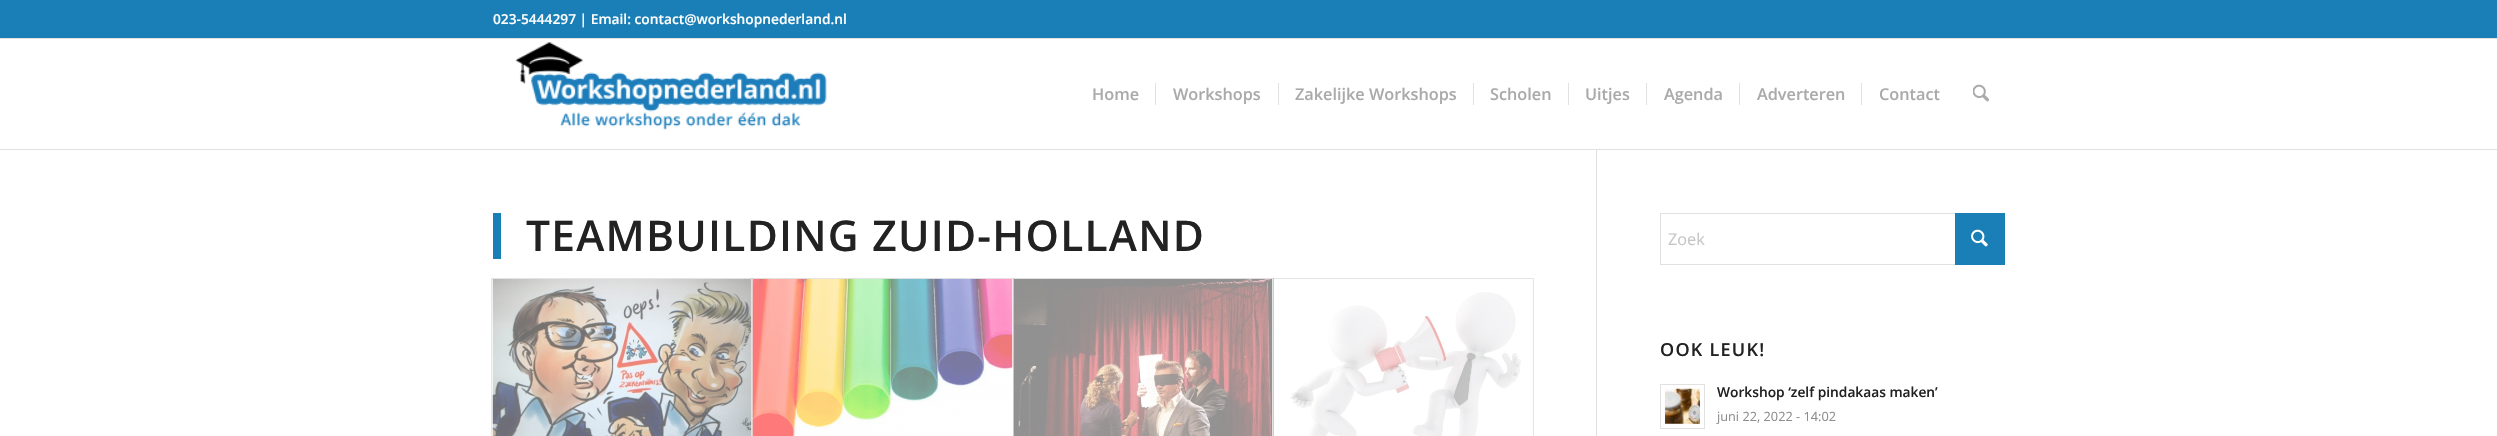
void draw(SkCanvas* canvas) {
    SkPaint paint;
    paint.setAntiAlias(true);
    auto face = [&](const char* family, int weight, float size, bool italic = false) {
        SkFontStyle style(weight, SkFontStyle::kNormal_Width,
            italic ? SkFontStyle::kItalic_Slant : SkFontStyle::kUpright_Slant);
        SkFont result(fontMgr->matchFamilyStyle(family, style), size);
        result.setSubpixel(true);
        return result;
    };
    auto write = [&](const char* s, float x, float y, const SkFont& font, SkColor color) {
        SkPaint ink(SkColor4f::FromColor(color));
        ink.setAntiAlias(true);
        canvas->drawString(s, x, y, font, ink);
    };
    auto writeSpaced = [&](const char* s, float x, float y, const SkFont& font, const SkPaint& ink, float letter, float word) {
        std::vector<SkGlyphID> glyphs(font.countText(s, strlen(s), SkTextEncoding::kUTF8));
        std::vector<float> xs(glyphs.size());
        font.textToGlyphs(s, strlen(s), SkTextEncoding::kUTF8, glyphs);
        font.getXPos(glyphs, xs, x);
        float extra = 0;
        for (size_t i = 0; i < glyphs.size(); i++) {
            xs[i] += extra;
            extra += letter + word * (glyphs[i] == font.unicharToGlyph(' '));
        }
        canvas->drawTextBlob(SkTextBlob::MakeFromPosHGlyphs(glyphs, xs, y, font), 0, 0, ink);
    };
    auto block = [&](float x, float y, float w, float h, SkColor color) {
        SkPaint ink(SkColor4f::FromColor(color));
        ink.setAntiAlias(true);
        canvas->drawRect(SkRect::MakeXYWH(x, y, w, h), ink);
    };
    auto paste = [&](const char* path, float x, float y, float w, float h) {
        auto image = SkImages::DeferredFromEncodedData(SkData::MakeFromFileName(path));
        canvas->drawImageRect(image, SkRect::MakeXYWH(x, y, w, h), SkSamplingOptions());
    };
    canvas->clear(SK_ColorWHITE);
    block(0, 0, 2497, 38, SkColorSetRGB(26, 127, 182));
    block(0, 38, 2497, 1, SkColorSetRGB(225, 225, 225));
    auto kFont1 = face("Open Sans", 600, 13.75f);
    write("023-5444297 | Email: contact@workshopnederland.nl", 493, 24, kFont1, SK_ColorWHITE);
    block(0, 149, 2497, 1, SkColorSetRGB(225, 225, 225));
    paste("pic1.png", 515, 42, 312, 88);
    auto kFont2 = face("Open Sans", 600, 16.25f);
    write("Home", 1092, 100, kFont2, SkColorSetRGB(170, 170, 170));
    write("Workshops", 1173, 100, kFont2, SkColorSetRGB(170, 170, 170));
    block(1155, 83, 1, 22, SkColorSetRGB(225, 225, 225));
    write("Zakelijke Workshops", 1295, 100, kFont2, SkColorSetRGB(170, 170, 170));
    block(1278, 83, 1, 22, SkColorSetRGB(225, 225, 225));
    write("Scholen", 1490, 100, kFont2, SkColorSetRGB(170, 170, 170));
    block(1473, 83, 1, 22, SkColorSetRGB(225, 225, 225));
    write("Uitjes", 1585, 100, kFont2, SkColorSetRGB(170, 170, 170));
    block(1568, 83, 1, 22, SkColorSetRGB(225, 225, 225));
    write("Agenda", 1664, 100, kFont2, SkColorSetRGB(170, 170, 170));
    block(1646, 83, 1, 22, SkColorSetRGB(225, 225, 225));
    write("Adverteren", 1757, 100, kFont2, SkColorSetRGB(170, 170, 170));
    block(1739, 83, 1, 22, SkColorSetRGB(225, 225, 225));
    write("Contact", 1879, 100, kFont2, SkColorSetRGB(170, 170, 170));
    block(1861, 83, 1, 22, SkColorSetRGB(225, 225, 225));
    paste("pic2.png", 1973, 84, 16, 18);
    block(1596, 150, 1, 286, SkColorSetRGB(225, 225, 225));
    block(493, 213, 8, 46, SkColorSetRGB(26, 127, 182));
    auto kFont3 = face("Open Sans", 600, 42.5f);
    paint.setColor(SkColorSetRGB(34, 34, 34));
    writeSpaced("TEAMBUILDING ZUID-HOLLAND", 526, 251, kFont3, paint, 1.25f, 0);
    paint.setStyle(SkPaint::kStroke_Style);
    paint.setStrokeWidth(1);
    paint.setColor(SkColorSetRGB(230, 230, 230));
    canvas->drawRect(SkRect::MakeXYWH(491.5f, 278.5f, 261, 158), paint);
    paste("pic3.png", 492, 278, 260, 158);
    paint.setColor(SkColorSetARGB(26, 0, 0, 0));
    canvas->drawRect(SkRect::MakeXYWH(751.5f, 278.5f, 262, 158), paint);
    paste("pic4.png", 752, 278, 261, 158);
    canvas->drawRect(SkRect::MakeXYWH(1013.5f, 278.5f, 260, 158), paint);
    paste("pic5.png", 1013, 278, 260, 158);
    canvas->drawRect(SkRect::MakeXYWH(1273.5f, 278.5f, 260, 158), paint);
    paste("pic6.png", 1290, 292, 231, 144);
    paint.setColor(SkColorSetRGB(225, 225, 225));
    canvas->drawRect(SkRect::MakeXYWH(1660.5f, 213.5f, 344, 51), paint);
    block(1955, 213, 50, 52, SkColorSetRGB(26, 127, 182));
    auto kFont4 = face("Open Sans", 400, 16.25f);
    write("Zoek", 1668, 245, kFont4, SkColorSetRGB(198, 198, 198));
    paste("pic7.png", 1971, 229, 17, 18);
    auto kFont5 = face("Open Sans", 600, 18);
    paint.setStyle(SkPaint::kFill_Style);
    paint.setColor(SkColorSetRGB(34, 34, 34));
    writeSpaced("OOK LEUK!", 1660, 356, kFont5, paint, 1.25f, 0);
    paint.setStyle(SkPaint::kStroke_Style);
    paint.setColor(SkColorSetRGB(225, 225, 225));
    canvas->drawRect(SkRect::MakeXYWH(1660.5f, 384.5f, 44, 44), paint);
    paste("pic8.png", 1665, 388, 35, 36);
    write("Workshop ‘zelf pindakaas maken’", 1717, 397, kFont1, SkColorSetRGB(34, 34, 34));
    auto kFont6 = face("Open Sans", 400, 12.75f);
    write("juni 22, 2022 - 14:02", 1717, 421, kFont6, SkColorSetRGB(141, 141, 141));
}
